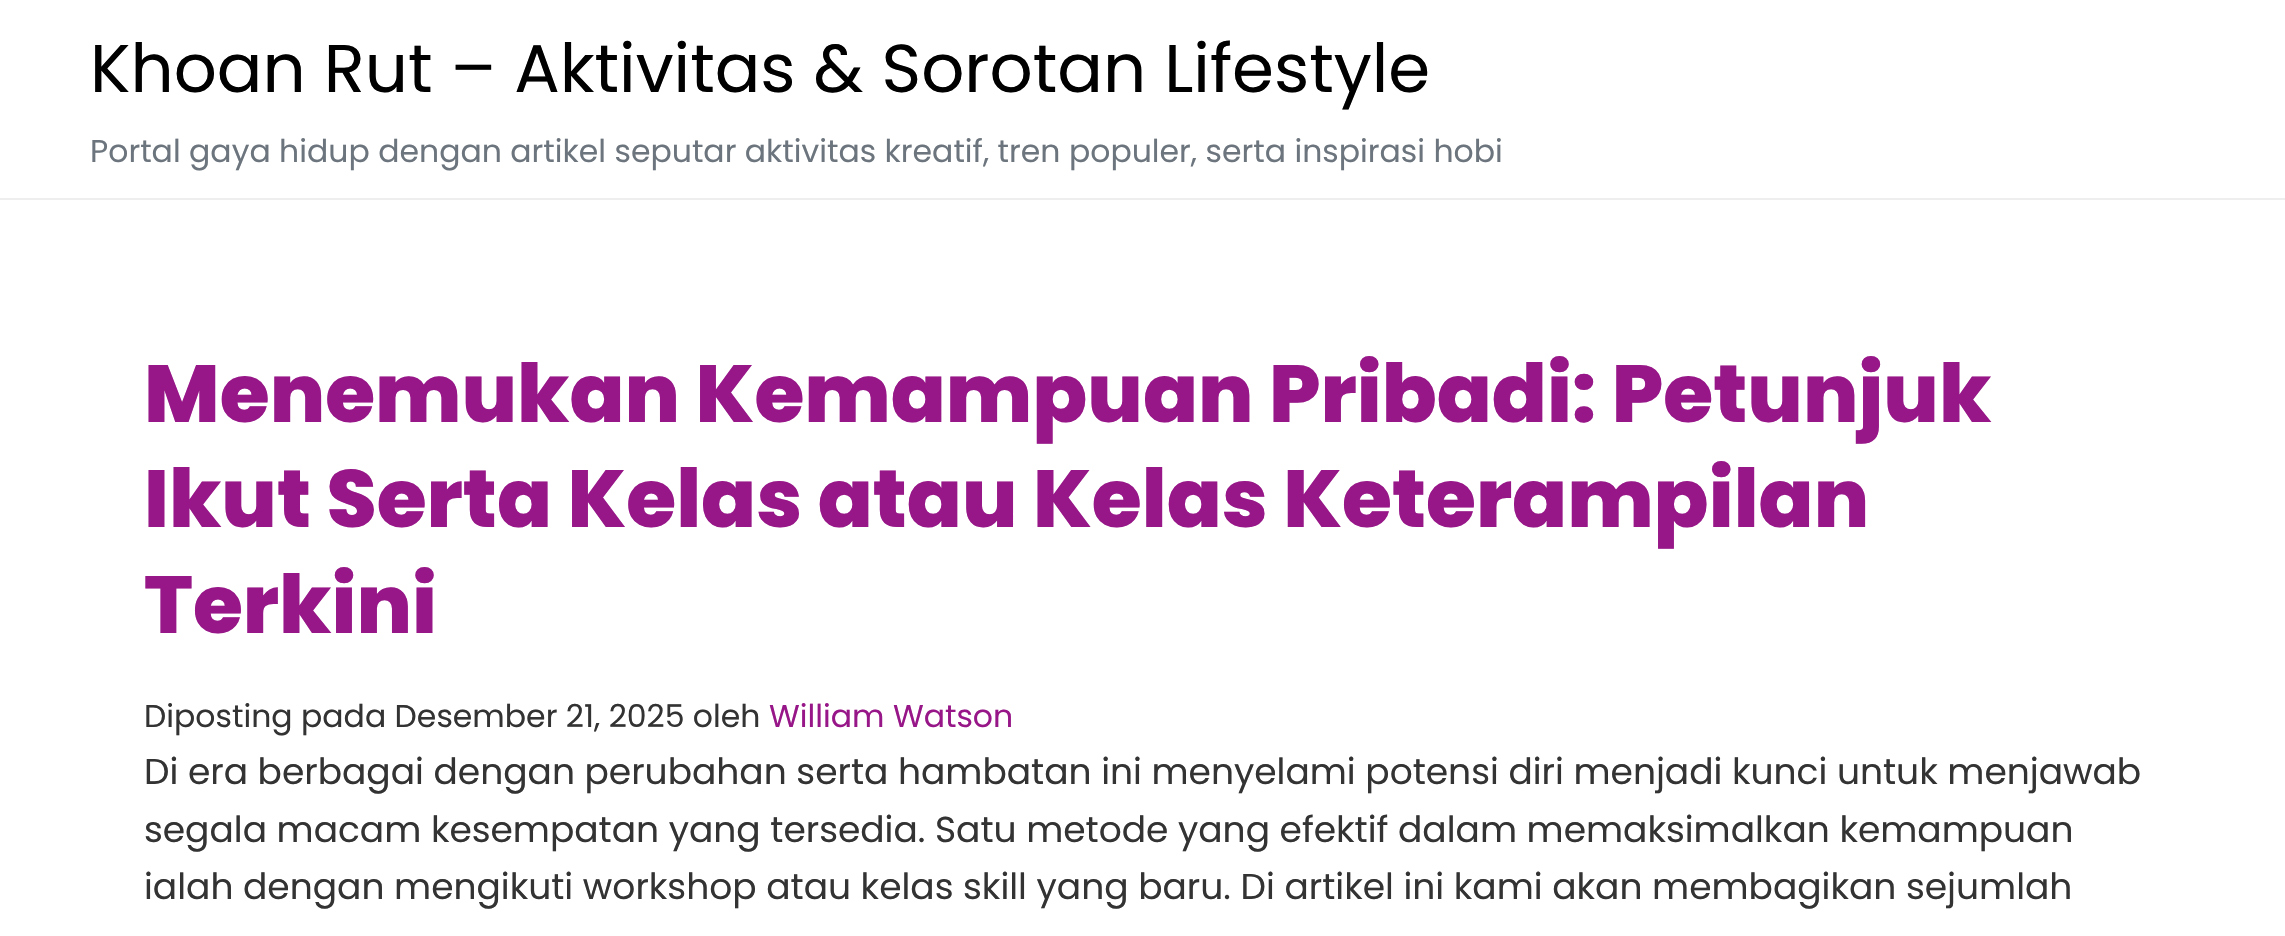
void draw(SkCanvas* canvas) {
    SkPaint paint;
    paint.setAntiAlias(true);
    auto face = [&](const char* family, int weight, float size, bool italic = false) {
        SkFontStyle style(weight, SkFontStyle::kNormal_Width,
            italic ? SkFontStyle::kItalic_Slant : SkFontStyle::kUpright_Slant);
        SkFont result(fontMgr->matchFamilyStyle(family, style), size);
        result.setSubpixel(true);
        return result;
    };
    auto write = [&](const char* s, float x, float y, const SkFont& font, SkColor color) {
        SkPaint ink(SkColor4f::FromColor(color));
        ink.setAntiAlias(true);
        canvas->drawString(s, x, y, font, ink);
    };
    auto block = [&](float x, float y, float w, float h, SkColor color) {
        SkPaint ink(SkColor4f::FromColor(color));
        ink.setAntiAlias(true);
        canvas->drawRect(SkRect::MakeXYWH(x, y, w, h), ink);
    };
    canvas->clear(SK_ColorWHITE);
    block(0, 198, 2285, 2, SkColorSetRGB(238, 238, 238));
    auto kFont1 = face("Poppins", 400, 67.5f);
    write("Khoan Rut – Aktivitas & Sorotan Lifestyle", 90, 92, kFont1, SK_ColorBLACK);
    auto kFont2 = face("Poppins", 400, 31.5f);
    write("Portal gaya hidup dengan artikel seputar aktivitas kreatif, tren populer, serta inspirasi hobi", 90, 162, kFont2, SkColorSetRGB(108, 117, 125));
    auto kFont3 = face("Poppins", 800, 81);
    write("Menemukan Kemampuan Pribadi: Petunjuk", 144, 422, kFont3, SkColorSetRGB(151, 23, 136));
    write("Ikut Serta Kelas atau Kelas Keterampilan", 144, 527, kFont3, SkColorSetRGB(151, 23, 136));
    write("Terkini", 144, 633, kFont3, SkColorSetRGB(151, 23, 136));
    write("Diposting pada Desember 21, 2025 oleh", 144, 727, kFont2, SkColorSetRGB(51, 51, 51));
    write("William Watson", 769, 727, kFont2, SkColorSetRGB(151, 23, 136));
    auto kFont4 = face("Poppins", 400, 36);
    write("Di era berbagai dengan perubahan serta hambatan ini menyelami potensi diri menjadi kunci untuk menjawab", 144, 784, kFont4, SkColorSetRGB(51, 51, 51));
    write("segala macam kesempatan yang tersedia. Satu metode yang efektif dalam memaksimalkan kemampuan", 144, 842, kFont4, SkColorSetRGB(51, 51, 51));
    write("ialah dengan mengikuti workshop atau kelas skill yang baru. Di artikel ini kami akan membagikan sejumlah", 144, 899, kFont4, SkColorSetRGB(51, 51, 51));
}
